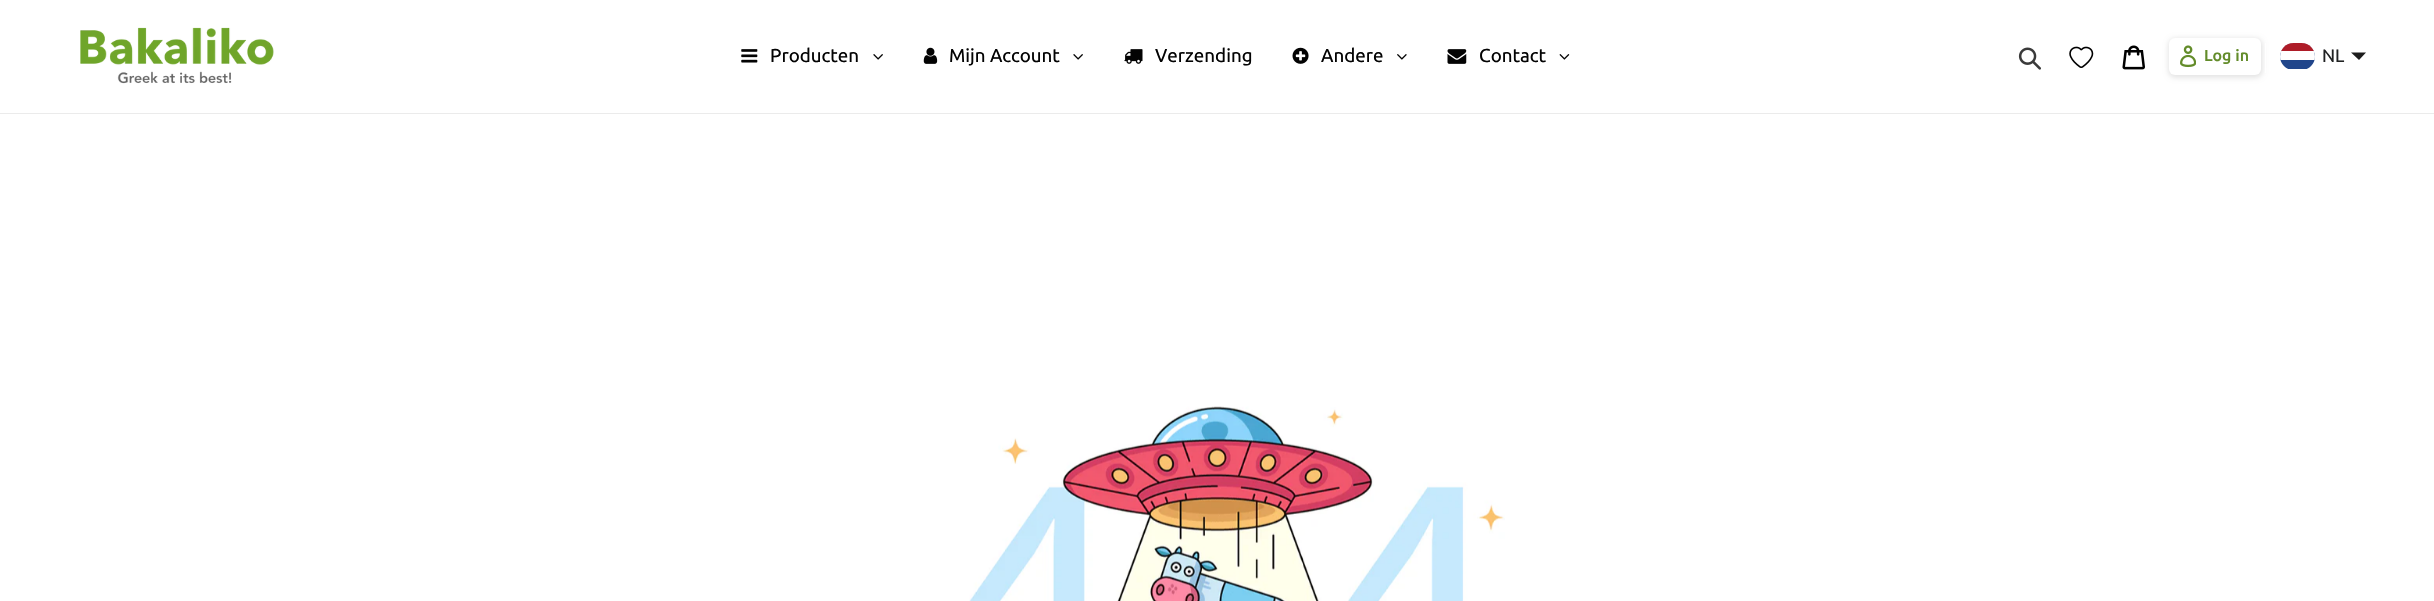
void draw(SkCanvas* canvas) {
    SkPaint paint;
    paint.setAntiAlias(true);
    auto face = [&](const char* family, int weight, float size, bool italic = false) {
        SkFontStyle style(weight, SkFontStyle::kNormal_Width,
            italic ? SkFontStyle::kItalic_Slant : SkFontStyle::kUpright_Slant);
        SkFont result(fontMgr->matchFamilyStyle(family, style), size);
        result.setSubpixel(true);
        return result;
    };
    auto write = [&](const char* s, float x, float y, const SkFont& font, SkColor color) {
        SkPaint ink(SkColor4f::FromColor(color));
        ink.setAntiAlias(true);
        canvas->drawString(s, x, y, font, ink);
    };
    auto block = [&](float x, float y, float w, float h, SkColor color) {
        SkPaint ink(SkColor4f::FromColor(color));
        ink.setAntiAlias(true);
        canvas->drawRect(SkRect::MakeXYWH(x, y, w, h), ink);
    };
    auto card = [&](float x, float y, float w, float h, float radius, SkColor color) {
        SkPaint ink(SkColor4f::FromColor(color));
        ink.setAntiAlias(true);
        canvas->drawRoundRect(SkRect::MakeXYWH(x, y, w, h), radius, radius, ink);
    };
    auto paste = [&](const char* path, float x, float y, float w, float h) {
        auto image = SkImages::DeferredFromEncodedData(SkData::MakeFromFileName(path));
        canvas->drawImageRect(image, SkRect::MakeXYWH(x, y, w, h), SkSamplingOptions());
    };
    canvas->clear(SK_ColorWHITE);
    block(0, 113, 2434, 1, SkColorSetRGB(235, 235, 235));
    paste("pic1.png", 80, 27, 194, 57);
    paste("pic2.png", 741, 49, 17, 14);
    auto kFont1 = face("Ubuntu", 400, 18.75f);
    write("Producten", 770, 62, kFont1, SkColorSetRGB(3, 3, 3));
    paste("pic3.png", 873, 54, 10, 6);
    paste("pic4.png", 923, 47, 15, 17);
    write("Mijn Account", 949, 62, kFont1, SkColorSetRGB(3, 3, 3));
    paste("pic3.png", 1073, 54, 10, 6);
    paste("pic5.png", 1124, 49, 19, 15);
    write("Verzending", 1155, 62, kFont1, SkColorSetRGB(3, 3, 3));
    paste("pic6.png", 1292, 47, 17, 17);
    write("Andere", 1321, 62, kFont1, SkColorSetRGB(3, 3, 3));
    paste("pic7.png", 1397, 54, 10, 6);
    paste("pic8.png", 1447, 49, 20, 15);
    write("Contact", 1479, 62, kFont1, SkColorSetRGB(3, 3, 3));
    paste("pic9.png", 1559, 54, 11, 6);
    paste("pic10.png", 2018, 47, 23, 23);
    paste("pic11.png", 2069, 46, 25, 22);
    paste("pic12.png", 2122, 45, 23, 25);
    paint.setColor(SkColorSetARGB(26, 0, 0, 0));
    paint.setMaskFilter(SkMaskFilter::MakeBlur(kNormal_SkBlurStyle, 2.5f));
    canvas->drawRoundRect(SkRect::MakeXYWH(2168, 38, 95, 40), 8, 8, paint);
    paint.setMaskFilter(nullptr);
    card(2169, 38, 92, 37, 6, SK_ColorWHITE);
    paste("pic13.png", 2180, 45, 16, 23);
    auto kFont2 = face("Ubuntu", 500, 16);
    write("Log in", 2204, 61, kFont2, SkColorSetRGB(99, 140, 42));
    block(2265, 43, 1, 30, SK_ColorWHITE);
    canvas->save();
    canvas->clipPath(SkPathBuilder().moveTo(2293.5f, 43).lineTo(2301.5f, 43).cubicTo(2309, 43, 2315, 49, 2315, 56.5f).cubicTo(2315, 64, 2309, 70, 2301.5f, 70).lineTo(2293.5f, 70).cubicTo(2286, 70, 2280, 64, 2280, 56.5f).cubicTo(2280, 49, 2286, 43, 2293.5f, 43).close().detach(), true);
    paint.setColor(SkColorSetRGB(33, 70, 139));
    canvas->drawPath(SkPathBuilder().moveTo(2293.5f, 43).lineTo(2301.5f, 43).cubicTo(2309, 43, 2315, 49, 2315, 56.5f).lineTo(2315, 69).lineTo(2280, 69).lineTo(2280, 56.5f).cubicTo(2280, 49, 2286, 43, 2293.5f, 43).close().detach(), paint);
    paint.setColor(SK_ColorWHITE);
    canvas->drawPath(SkPathBuilder().moveTo(2293.5f, 43).lineTo(2301.5f, 43).cubicTo(2309, 43, 2315, 49, 2315, 56.5f).lineTo(2315, 60).lineTo(2280, 60).lineTo(2280, 56.5f).cubicTo(2280, 49, 2286, 43, 2293.5f, 43).close().detach(), paint);
    block(2280, 43, 35, 8, SkColorSetRGB(174, 28, 40));
    canvas->restore();
    auto kFont3 = face("Ubuntu", 400, 18);
    write("NL", 2322, 62, kFont3, SkColorSetRGB(32, 34, 35));
    paint.setColor(SkColorSetRGB(29, 29, 29));
    canvas->drawPath(SkPathBuilder().moveTo(2351, 52.5f).lineTo(2366, 52.5f).lineTo(2359, 60).close().detach(), paint);
    paste("pic14.png", 969, 406, 536, 195);
}
